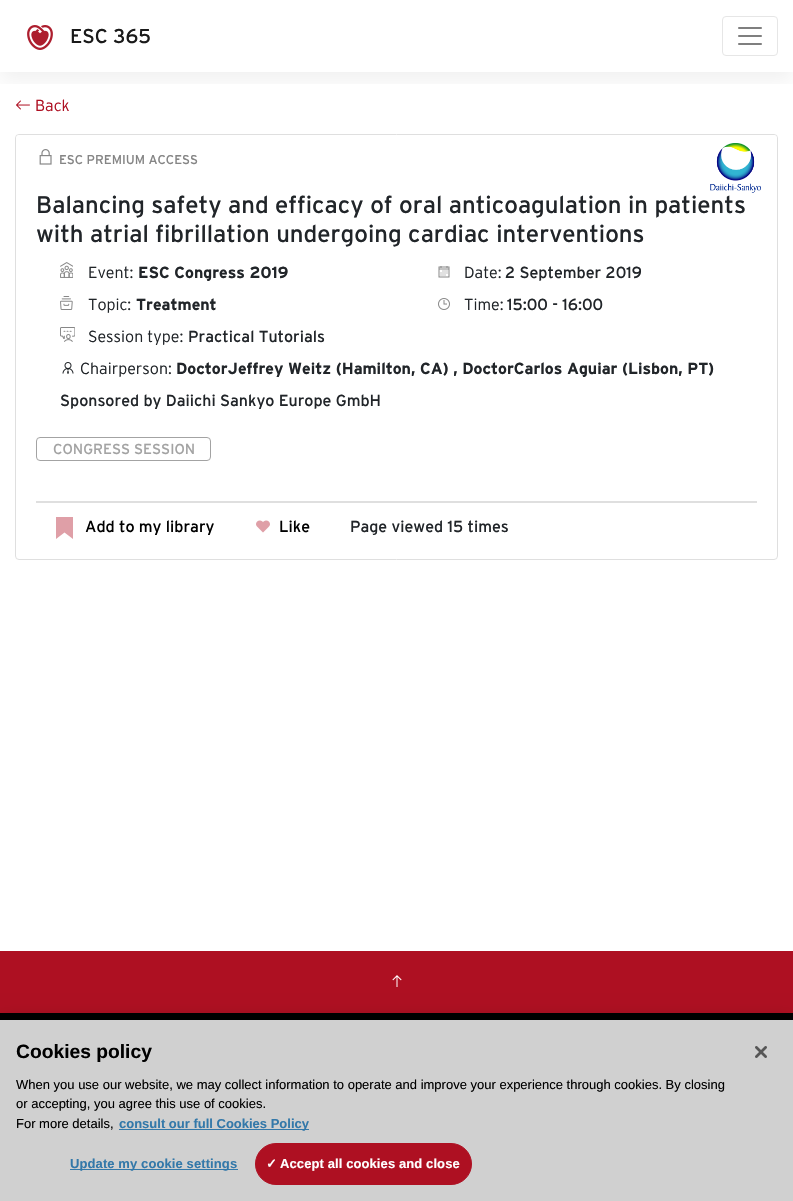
void draw(SkCanvas* canvas) {
    SkPaint paint;
    paint.setAntiAlias(true);
    auto face = [&](const char* family, int weight, float size, bool italic = false) {
        SkFontStyle style(weight, SkFontStyle::kNormal_Width,
            italic ? SkFontStyle::kItalic_Slant : SkFontStyle::kUpright_Slant);
        SkFont result(fontMgr->matchFamilyStyle(family, style), size);
        result.setSubpixel(true);
        return result;
    };
    auto write = [&](const char* s, float x, float y, const SkFont& font, SkColor color) {
        SkPaint ink(SkColor4f::FromColor(color));
        ink.setAntiAlias(true);
        canvas->drawString(s, x, y, font, ink);
    };
    auto writeSpaced = [&](const char* s, float x, float y, const SkFont& font, const SkPaint& ink, float letter, float word) {
        std::vector<SkGlyphID> glyphs(font.countText(s, strlen(s), SkTextEncoding::kUTF8));
        std::vector<float> xs(glyphs.size());
        font.textToGlyphs(s, strlen(s), SkTextEncoding::kUTF8, glyphs);
        font.getXPos(glyphs, xs, x);
        float extra = 0;
        for (size_t i = 0; i < glyphs.size(); i++) {
            xs[i] += extra;
            extra += letter + word * (glyphs[i] == font.unicharToGlyph(' '));
        }
        canvas->drawTextBlob(SkTextBlob::MakeFromPosHGlyphs(glyphs, xs, y, font), 0, 0, ink);
    };
    auto block = [&](float x, float y, float w, float h, SkColor color) {
        SkPaint ink(SkColor4f::FromColor(color));
        ink.setAntiAlias(true);
        canvas->drawRect(SkRect::MakeXYWH(x, y, w, h), ink);
    };
    auto paste = [&](const char* path, float x, float y, float w, float h) {
        auto image = SkImages::DeferredFromEncodedData(SkData::MakeFromFileName(path));
        canvas->drawImageRect(image, SkRect::MakeXYWH(x, y, w, h), SkSamplingOptions());
    };
    canvas->clear(SK_ColorWHITE);
    paste("pic3.png", 16, 100, 14, 10);
    canvas->save();
    canvas->clipRect(SkRect::MakeXYWH(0, 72, 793, 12));
    paint.setColor(SkColorSetARGB(15, 0, 0, 0));
    paint.setMaskFilter(SkMaskFilter::MakeBlur(kNormal_SkBlurStyle, 10));
    canvas->drawRect(SkRect::MakeXYWH(0, 8, 793, 72), paint);
    paint.setMaskFilter(nullptr);
    canvas->restore();
    paste("pic1.png", 27, 25, 26, 25);
    auto kFont1 = face("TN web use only", 400, 20);
    write("ESC 365", 70, 43, kFont1, SkColorSetRGB(26, 26, 26));
    paint.setStyle(SkPaint::kStroke_Style);
    paint.setStrokeWidth(1);
    paint.setColor(SkColorSetRGB(230, 230, 230));
    canvas->drawRoundRect(SkRect::MakeXYWH(722.5f, 16.5f, 55, 39), 3.5f, 3.5f, paint);
    paste("pic2.png", 738, 27, 24, 18);
    auto kFont2 = face("TN web use only", 300, 16);
    write("Back", 35, 111, kFont2, SkColorSetRGB(174, 16, 34));
    paint.setColor(SkColorSetRGB(223, 223, 223));
    canvas->drawRoundRect(SkRect::MakeXYWH(15.5f, 134.5f, 762, 425), 3.5f, 3.5f, paint);
    paint.setStyle(SkPaint::kFill_Style);
    paint.setColor(SK_ColorWHITE);
    canvas->drawPath(SkPathBuilder().moveTo(19, 135).lineTo(774, 135).cubicTo(775.5f, 135, 777, 136.5f, 777, 138).lineTo(777, 171).lineTo(16, 171).lineTo(16, 138).cubicTo(16, 136.5f, 17.5f, 135, 19, 135).close().detach(), paint);
    paste("pic4.png", 39, 149, 13, 16);
    auto kFont3 = face("TN web use only", 400, 12.75f);
    write("ESC PREMIUM ACCESS", 59, 164, kFont3, SkColorSetRGB(133, 133, 133));
    paste("pic5.png", 710, 143, 51, 50);
    auto kFont4 = face("TN web use only", 400, 24);
    write("Balancing safety and efficacy of oral anticoagulation in patients", 36, 213, kFont4, SkColorSetRGB(33, 37, 41));
    write("with atrial fibrillation undergoing cardiac interventions", 36, 242, kFont4, SkColorSetRGB(33, 37, 41));
    paste("pic6.png", 60, 262, 13, 16);
    write("Event:", 88, 278, kFont2, SkColorSetRGB(33, 37, 41));
    auto kFont5 = face("TN web use only", 700, 16);
    write("ESC Congress 2019", 138, 278, kFont5, SkColorSetRGB(33, 37, 41));
    paste("pic7.png", 60, 296, 13, 14);
    write("Topic:", 88, 310, kFont2, SkColorSetRGB(33, 37, 41));
    write("Treatment", 136, 310, kFont5, SkColorSetRGB(33, 37, 41));
    paste("pic8.png", 60, 327, 15, 15);
    write("Session type:", 88, 342, kFont2, SkColorSetRGB(33, 37, 41));
    auto kFont6 = face("TN web use only", 400, 16);
    write("Practical Tutorials", 188, 342, kFont6, SkColorSetRGB(33, 37, 41));
    paste("pic9.png", 438, 266, 12, 12);
    write("Date:", 464, 278, kFont2, SkColorSetRGB(33, 37, 41));
    write("2 September 2019", 505, 278, kFont6, SkColorSetRGB(33, 37, 41));
    paste("pic10.png", 438, 298, 12, 12);
    write("Time:", 464, 310, kFont2, SkColorSetRGB(33, 37, 41));
    write("15:00 - 16:00", 507, 310, kFont6, SkColorSetRGB(33, 37, 41));
    paste("pic11.png", 62, 362, 12, 12);
    write("Chairperson:", 80, 374, kFont2, SkColorSetRGB(33, 37, 41));
    write("DoctorJeffrey Weitz (Hamilton, CA) , DoctorCarlos Aguiar (Lisbon, PT)", 176, 374, kFont5, SkColorSetRGB(33, 37, 41));
    write("Sponsored by Daiichi Sankyo Europe GmbH", 60, 406, kFont6, SkColorSetRGB(33, 37, 41));
    paint.setStyle(SkPaint::kStroke_Style);
    paint.setColor(SkColorSetRGB(163, 163, 163));
    canvas->drawRoundRect(SkRect::MakeXYWH(36.5f, 437.5f, 174, 23), 3.5f, 3.5f, paint);
    auto kFont7 = face("TN web use only", 400, 14.5f);
    write("CONGRESS SESSION", 53, 454, kFont7, SkColorSetRGB(163, 163, 163));
    block(36, 501, 721, 2, SkColorSetRGB(223, 223, 223));
    paint.setStyle(SkPaint::kFill_Style);
    paint.setColor(SkColorSetRGB(223, 159, 167));
    canvas->drawPath(SkPathBuilder().moveTo(56, 517).lineTo(56, 539).lineTo(64.5f, 532.5f).lineTo(73, 539).lineTo(73, 517).close().detach(), paint);
    write("Add to my library", 85, 532, kFont6, SK_ColorBLACK);
    paste("pic12.png", 256, 520, 14, 13);
    write("Like", 279, 532, kFont6, SK_ColorBLACK);
    write("Page viewed 15 times", 350, 532, kFont6, SkColorSetRGB(33, 37, 41));
    block(0, 1013, 793, 7, SK_ColorBLACK);
    block(0, 951, 793, 62, SkColorSetRGB(174, 16, 34));
    paste("pic13.png", 392, 975, 10, 12);
    paint.setColor(SkColorSetARGB(51, 0, 0, 0));
    paint.setMaskFilter(SkMaskFilter::MakeBlur(kNormal_SkBlurStyle, 9));
    canvas->drawRect(SkRect::MakeXYWH(0, 1020, 793, 181), paint);
    paint.setMaskFilter(nullptr);
    block(0, 1020, 793, 181, SkColorSetRGB(208, 208, 208));
    auto kFont8 = face("Liberation Sans", 700, 19.25f);
    write("Cookies policy", 16, 1058, kFont8, SK_ColorBLACK);
    auto kFont9 = face("Liberation Sans", 400, 13);
    write("When you use our website, we may collect information to operate and improve your experience through cookies. By closing", 16, 1089, kFont9, SK_ColorBLACK);
    write("or accepting, you agree this use of cookies.", 16, 1108, kFont9, SK_ColorBLACK);
    write("For more details,", 16, 1128, kFont9, SK_ColorBLACK);
    block(119, 1129, 190, 1, SkColorSetRGB(51, 120, 169));
    auto kFont10 = face("Liberation Sans", 700, 13);
    write("consult our full Cookies Policy", 119, 1128, kFont10, SkColorSetRGB(51, 120, 169));
    block(70, 1169, 168, 1, SkColorSetRGB(51, 120, 169));
    paint.setColor(SkColorSetRGB(51, 120, 169));
    writeSpaced("Update my cookie settings", 70, 1168, kFont10, paint, 0.1f, 0);
    paint.setColor(SkColorSetRGB(174, 16, 34));
    canvas->drawRoundRect(SkRect::MakeXYWH(255.5f, 1143.5f, 216, 41), 20.5f, 20.5f, paint);
    paint.setStyle(SkPaint::kStroke_Style);
    canvas->drawRoundRect(SkRect::MakeXYWH(255.5f, 1143.5f, 216, 41), 20.5f, 20.5f, paint);
    auto kFont11 = face("DejaVu Sans", 700, 13);
    paint.setStyle(SkPaint::kFill_Style);
    paint.setColor(SK_ColorWHITE);
    writeSpaced("✓", 266, 1168, kFont11, paint, 0.1f, 0);
    writeSpaced("Accept all cookies and close", 280, 1168, kFont10, paint, 0.1f, 0);
    paste("pic14.png", 755, 1046, 12, 12);
}
